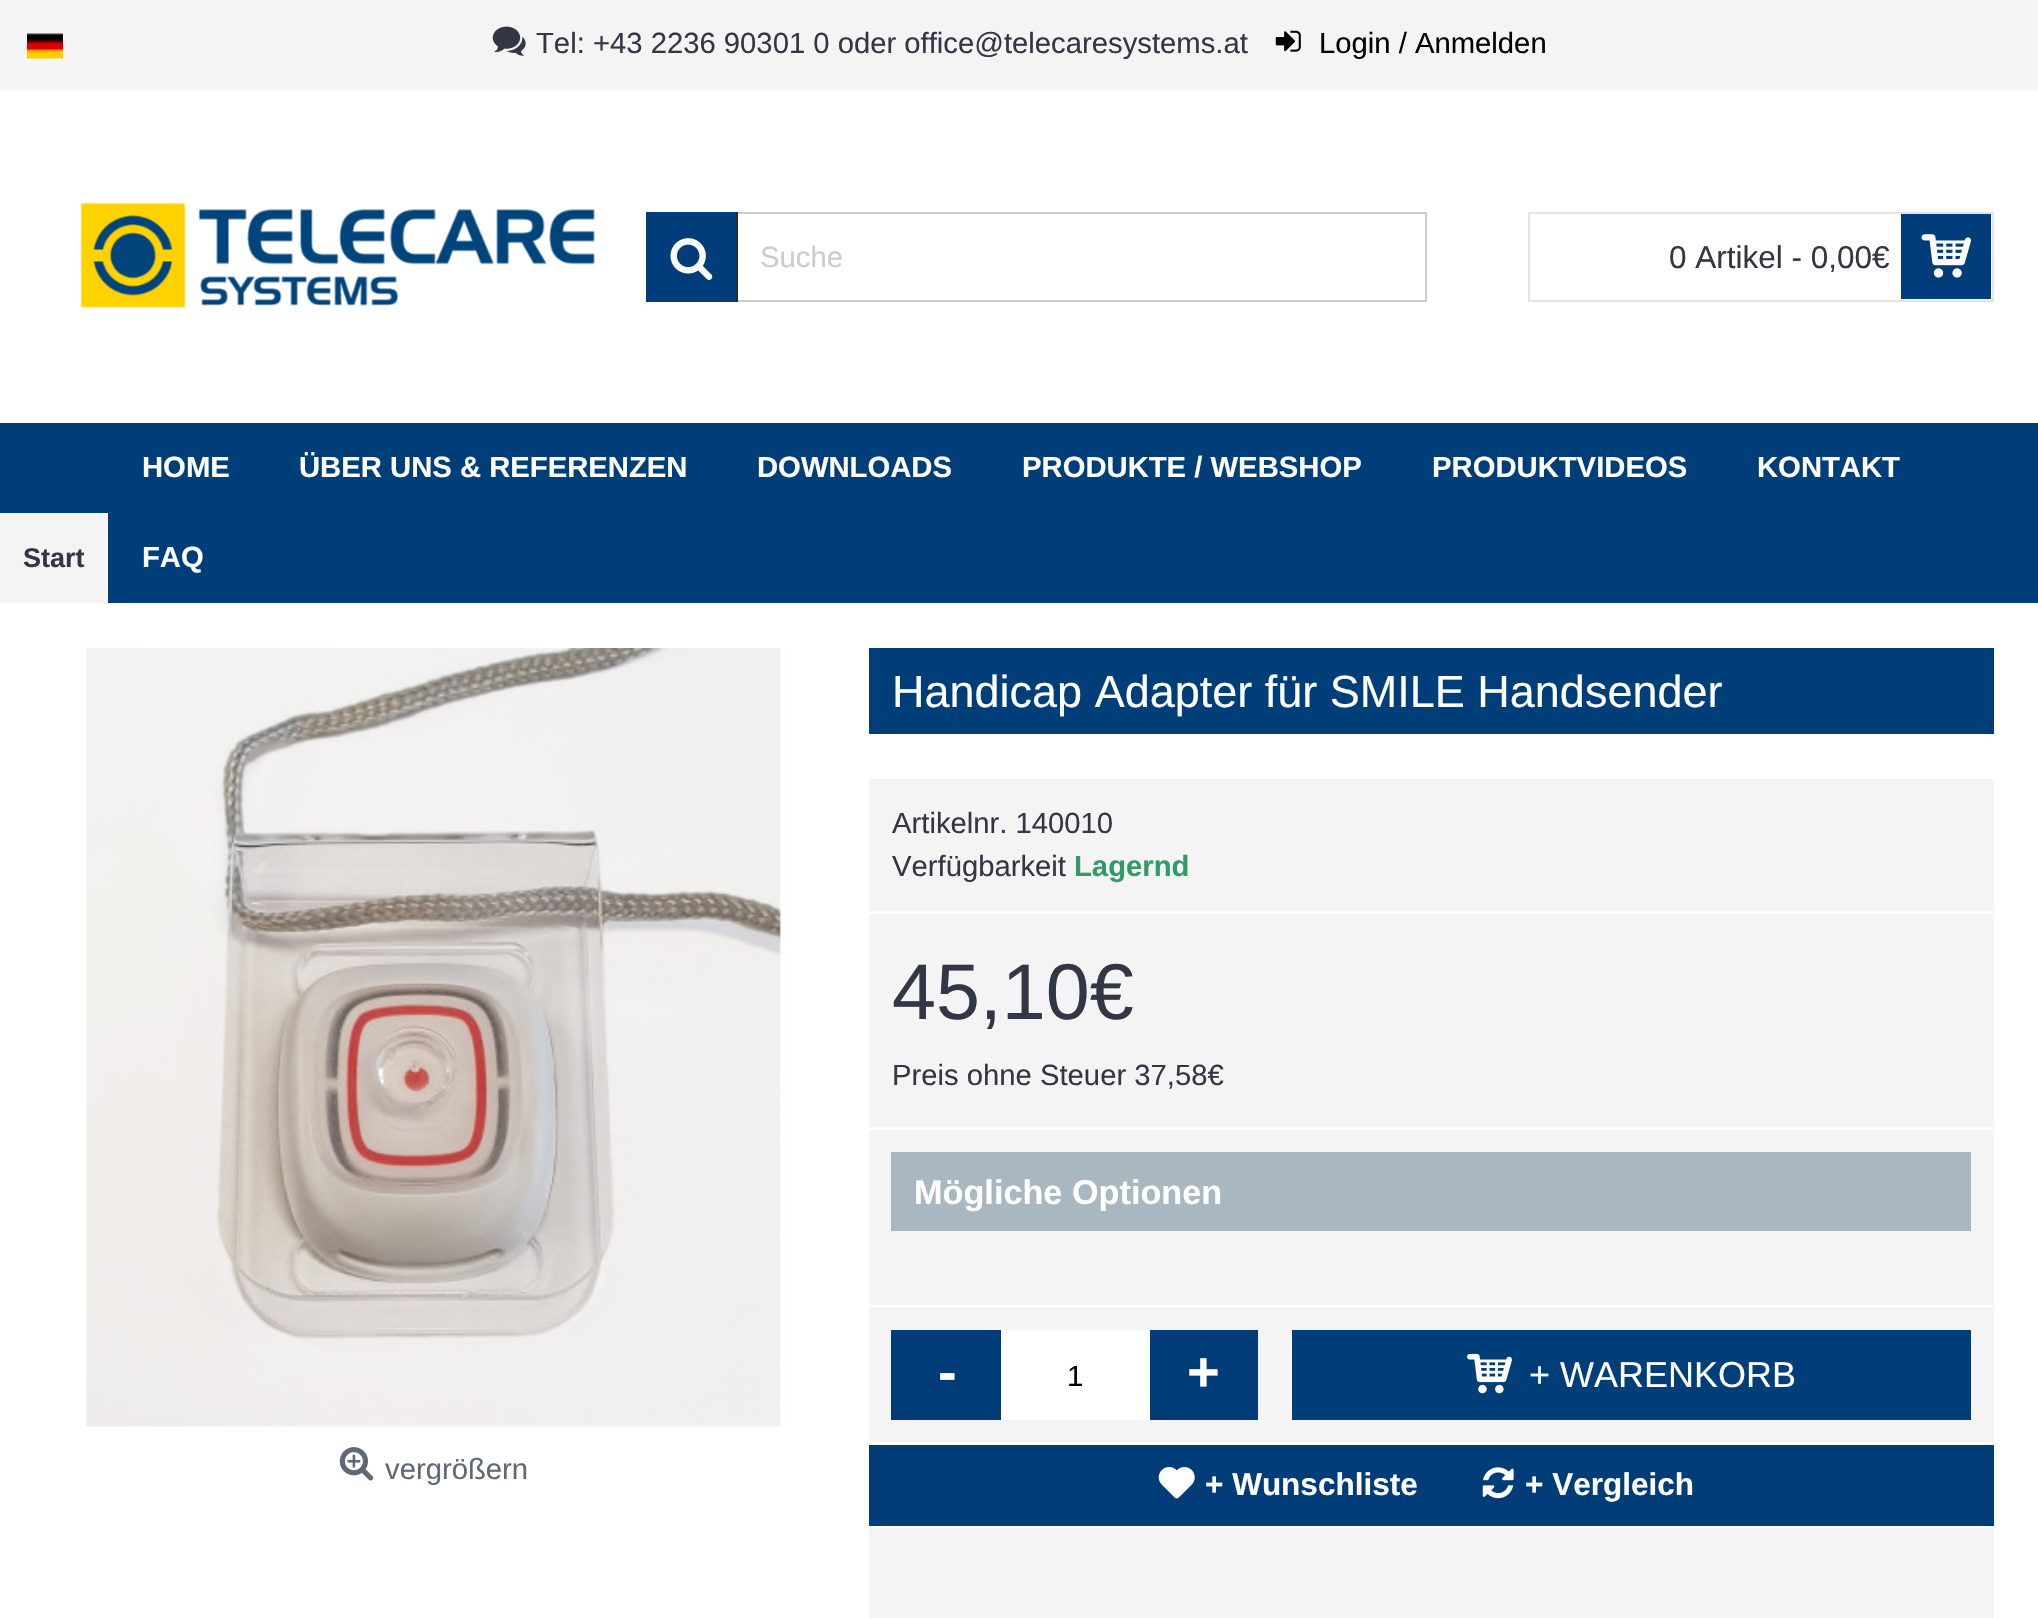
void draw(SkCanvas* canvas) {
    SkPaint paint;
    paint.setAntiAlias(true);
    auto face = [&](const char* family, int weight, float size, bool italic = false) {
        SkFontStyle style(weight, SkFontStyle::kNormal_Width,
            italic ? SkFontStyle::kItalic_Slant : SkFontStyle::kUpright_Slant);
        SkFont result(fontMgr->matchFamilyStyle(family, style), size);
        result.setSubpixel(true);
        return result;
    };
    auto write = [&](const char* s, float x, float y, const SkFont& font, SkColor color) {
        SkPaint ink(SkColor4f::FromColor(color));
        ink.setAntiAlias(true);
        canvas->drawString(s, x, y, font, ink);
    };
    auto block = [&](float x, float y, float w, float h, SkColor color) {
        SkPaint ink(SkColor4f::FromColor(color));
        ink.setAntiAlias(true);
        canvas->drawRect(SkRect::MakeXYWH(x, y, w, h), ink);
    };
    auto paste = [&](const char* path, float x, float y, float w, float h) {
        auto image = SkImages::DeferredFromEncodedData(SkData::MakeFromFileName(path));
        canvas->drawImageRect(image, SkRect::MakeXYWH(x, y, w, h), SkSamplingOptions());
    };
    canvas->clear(SK_ColorWHITE);
    block(0, 0, 2038, 90, SkColorSetRGB(244, 244, 244));
    block(0, 423, 108, 90, SkColorSetRGB(0, 62, 121));
    paste("pic1.png", 27, 33, 36, 26);
    paste("pic2.png", 492, 26, 34, 30);
    auto kFont1 = face("Liberation Sans", 400, 29.25f);
    write("Tel: +43 2236 90301 0 oder office@telecaresystems.at", 536, 53, kFont1, SkColorSetRGB(51, 55, 69));
    paste("pic3.png", 1275, 30, 26, 22);
    write("Login / Anmelden", 1319, 53, kFont1, SK_ColorBLACK);
    paste("pic4.png", 80, 202, 515, 107);
    paint.setStyle(SkPaint::kStroke_Style);
    paint.setStrokeWidth(2);
    paint.setColor(SkColorSetRGB(204, 204, 204));
    canvas->drawRect(SkRect::MakeXYWH(647, 213, 779, 88), paint);
    block(646, 212, 90, 90, SkColorSetRGB(0, 61, 122));
    block(736, 212, 2, 90, SkColorSetRGB(42, 43, 46));
    paste("pic5.png", 670, 238, 43, 42);
    write("Suche", 760, 267, kFont1, SkColorSetRGB(204, 204, 204));
    paint.setColor(SkColorSetRGB(228, 228, 228));
    canvas->drawRect(SkRect::MakeXYWH(1529, 213, 464, 88), paint);
    auto kFont2 = face("Liberation Sans", 400, 31.5f);
    write("0 Artikel - 0,00€", 1669, 268, kFont2, SkColorSetRGB(51, 55, 69));
    block(1901, 214, 90, 85, SkColorSetRGB(0, 61, 122));
    paste("pic6.png", 1921, 234, 50, 44);
    block(108, 423, 1930, 180, SkColorSetRGB(0, 62, 121));
    auto kFont3 = face("Liberation Sans", 700, 29.25f);
    write("HOME", 142, 477, kFont3, SK_ColorWHITE);
    write("ÜBER UNS & REFERENZEN", 299, 477, kFont3, SK_ColorWHITE);
    write("DOWNLOADS", 757, 477, kFont3, SK_ColorWHITE);
    write("PRODUKTE / WEBSHOP", 1022, 477, kFont3, SK_ColorWHITE);
    write("PRODUKTVIDEOS", 1432, 477, kFont3, SK_ColorWHITE);
    write("KONTAKT", 1757, 477, kFont3, SK_ColorWHITE);
    write("FAQ", 142, 567, kFont3, SK_ColorWHITE);
    block(0, 513, 108, 90, SkColorSetRGB(244, 244, 244));
    auto kFont4 = face("Liberation Sans", 700, 27);
    write("Start", 23, 567, kFont4, SkColorSetRGB(51, 55, 69));
    paste("pic7.png", 86, 648, 705, 779);
    paste("pic8.png", 339, 1447, 35, 34);
    write("vergrößern", 385, 1479, kFont1, SkColorSetRGB(95, 104, 116));
    block(869, 648, 1125, 86, SkColorSetRGB(0, 62, 121));
    auto kFont5 = face("Liberation Sans", 400, 45);
    write("Handicap Adapter für SMILE Handsender", 892, 707, kFont5, SK_ColorWHITE);
    block(869, 779, 1125, 132, SkColorSetRGB(244, 244, 244));
    write("Artikelnr. 140010", 892, 833, kFont1, SkColorSetRGB(51, 55, 69));
    write("Verfügbarkeit", 892, 876, kFont1, SkColorSetRGB(51, 55, 69));
    write("Lagernd", 1074, 876, kFont3, SkColorSetRGB(51, 153, 101));
    block(869, 914, 1125, 213, SkColorSetRGB(244, 244, 244));
    auto kFont6 = face("Liberation Sans", 400, 79);
    write("45,10€", 892, 1019, kFont6, SkColorSetRGB(51, 55, 69));
    write("Preis ohne Steuer 37,58€", 892, 1085, kFont1, SkColorSetRGB(51, 55, 69));
    block(869, 1130, 1125, 175, SkColorSetRGB(244, 244, 244));
    block(891, 1152, 1080, 79, SkColorSetRGB(169, 184, 192));
    auto kFont7 = face("Liberation Sans", 700, 34.25f);
    write("Mögliche Optionen", 914, 1204, kFont7, SK_ColorWHITE);
    block(869, 1307, 1125, 135, SkColorSetRGB(244, 244, 244));
    block(891, 1330, 110, 90, SkColorSetRGB(0, 60, 120));
    auto kFont8 = face("Liberation Sans", 700, 56);
    write("-", 938, 1391, kFont8, SK_ColorWHITE);
    block(1001, 1330, 149, 90, SK_ColorWHITE);
    write("1", 1067, 1386, kFont1, SK_ColorBLACK);
    block(1150, 1330, 108, 90, SkColorSetRGB(0, 60, 120));
    write("+", 1187, 1391, kFont8, SK_ColorWHITE);
    block(1292, 1330, 679, 90, SkColorSetRGB(0, 62, 121));
    paste("pic9.png", 1467, 1353, 45, 41);
    auto kFont9 = face("Liberation Sans", 400, 36);
    write("+ WARENKORB", 1529, 1387, kFont9, SK_ColorWHITE);
    block(869, 1445, 1125, 81, SkColorSetRGB(0, 60, 120));
    paste("pic10.png", 1158, 1467, 37, 32);
    auto kFont10 = face("Liberation Sans", 700, 31.5f);
    write("+ Wunschliste", 1205, 1495, kFont10, SK_ColorWHITE);
    paste("pic11.png", 1482, 1467, 32, 32);
    write("+ Vergleich", 1525, 1495, kFont10, SK_ColorWHITE);
    block(869, 1528, 1125, 90, SkColorSetRGB(244, 244, 244));
}
